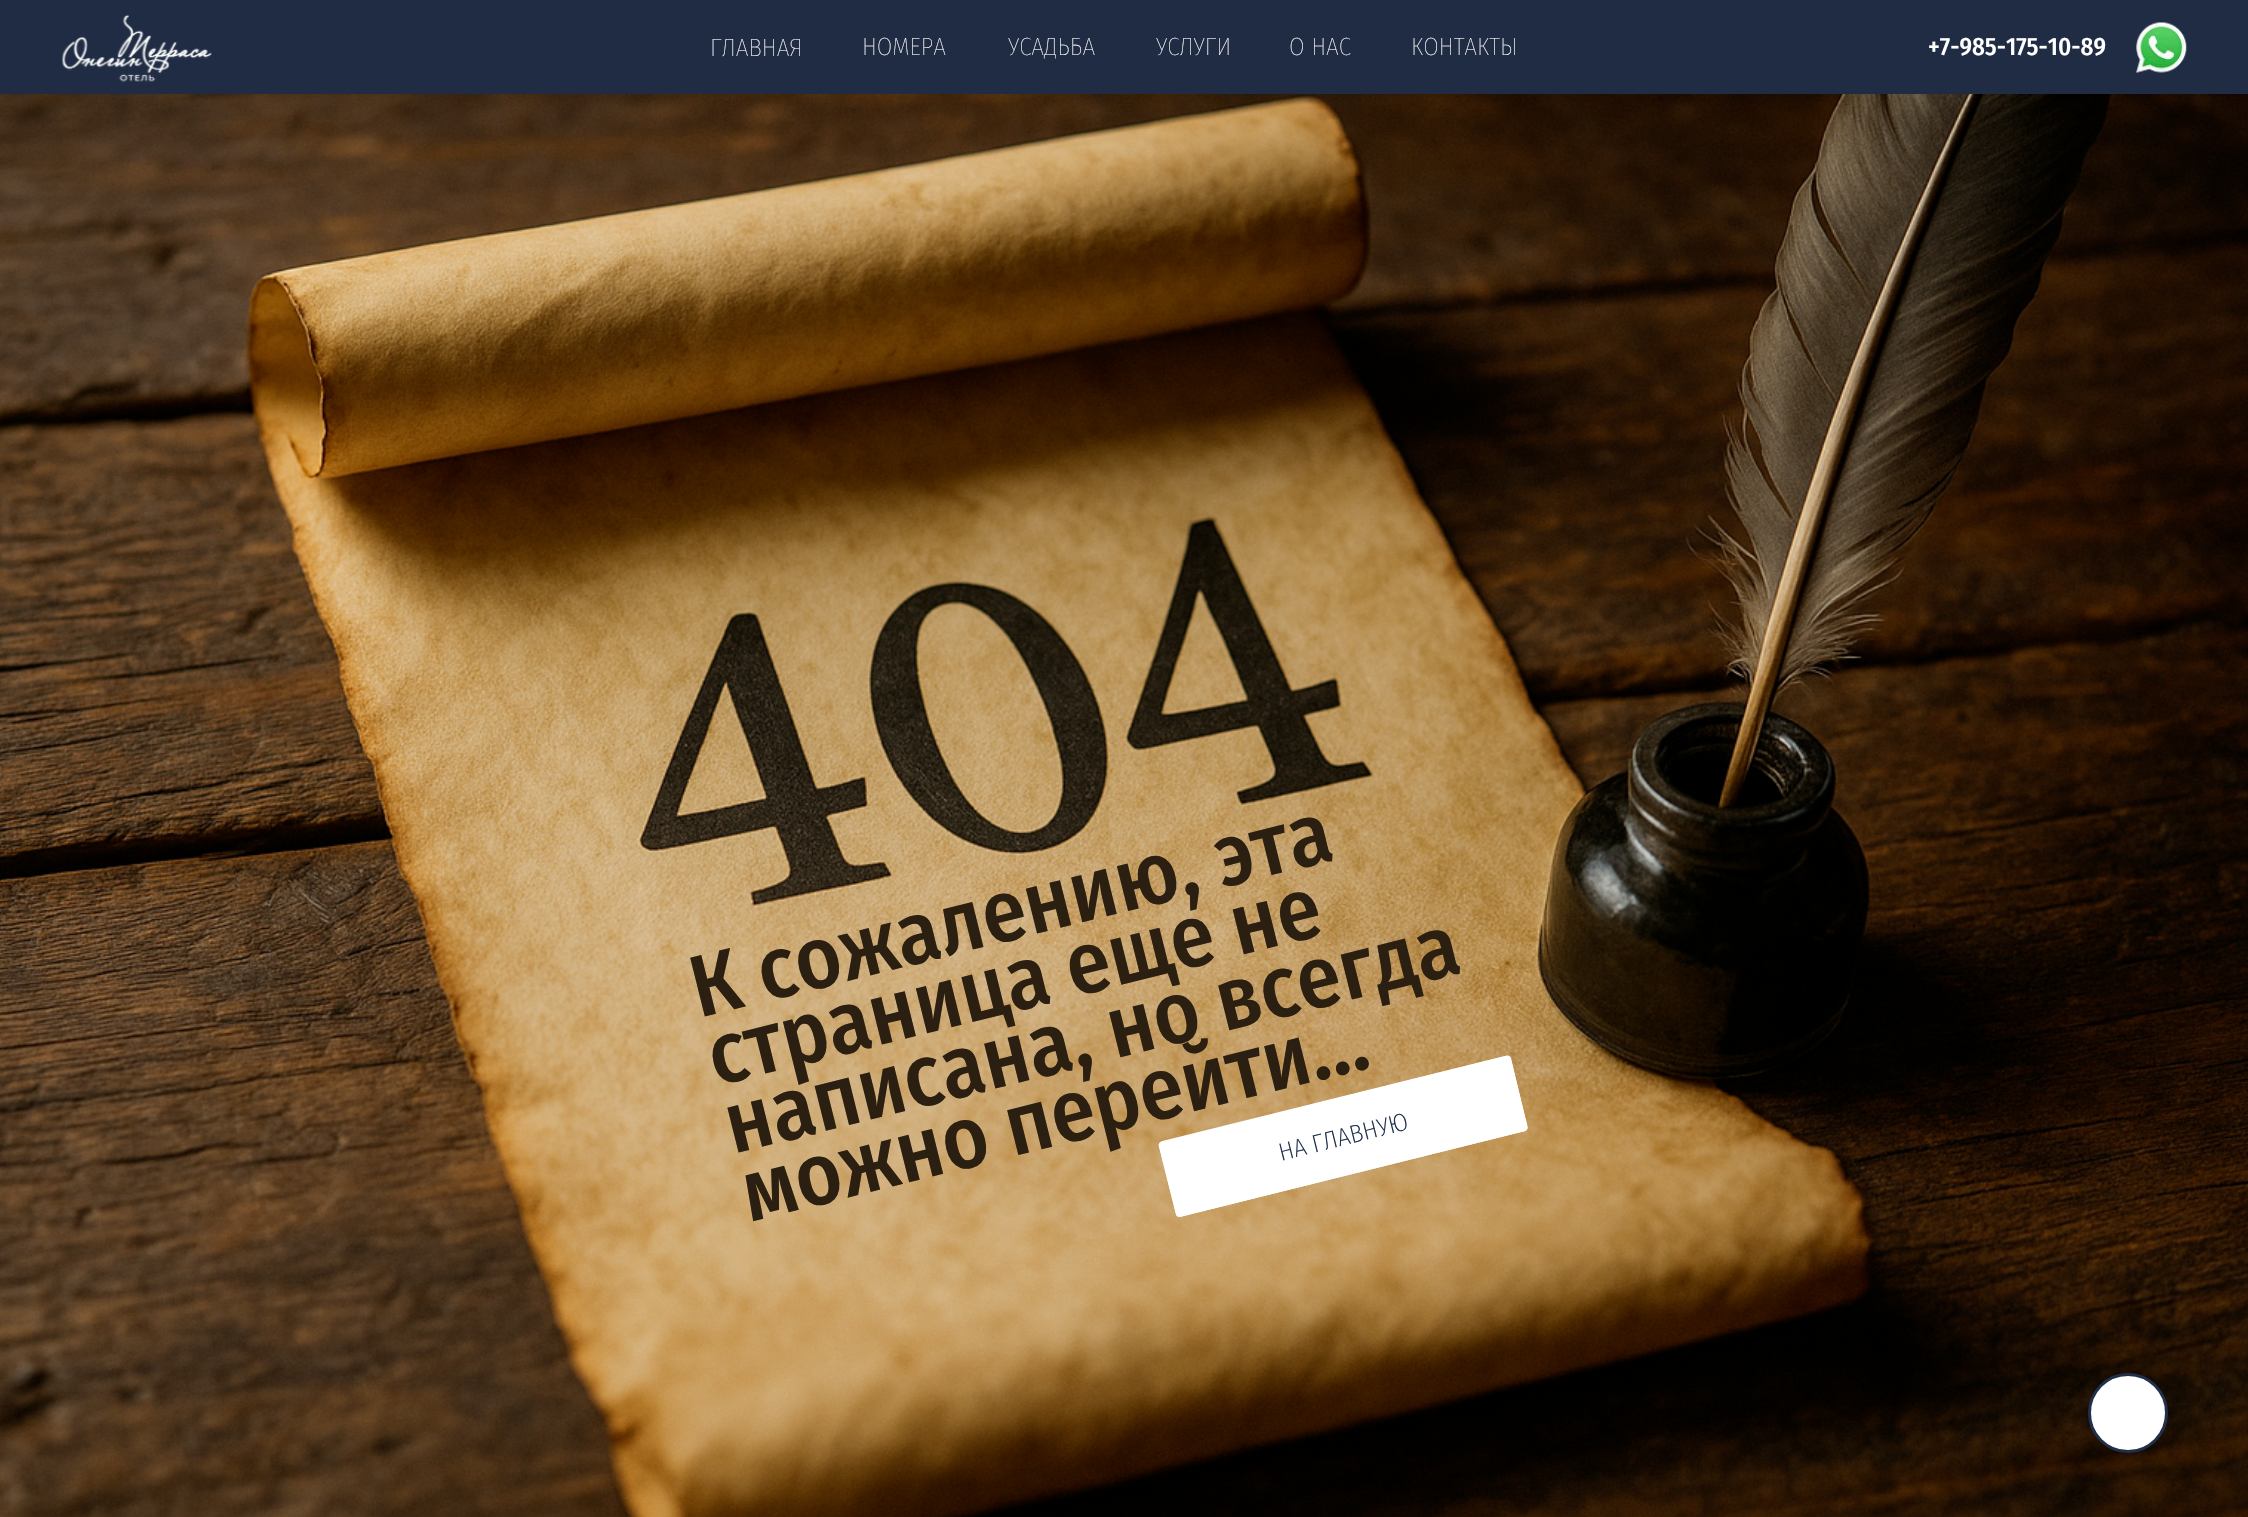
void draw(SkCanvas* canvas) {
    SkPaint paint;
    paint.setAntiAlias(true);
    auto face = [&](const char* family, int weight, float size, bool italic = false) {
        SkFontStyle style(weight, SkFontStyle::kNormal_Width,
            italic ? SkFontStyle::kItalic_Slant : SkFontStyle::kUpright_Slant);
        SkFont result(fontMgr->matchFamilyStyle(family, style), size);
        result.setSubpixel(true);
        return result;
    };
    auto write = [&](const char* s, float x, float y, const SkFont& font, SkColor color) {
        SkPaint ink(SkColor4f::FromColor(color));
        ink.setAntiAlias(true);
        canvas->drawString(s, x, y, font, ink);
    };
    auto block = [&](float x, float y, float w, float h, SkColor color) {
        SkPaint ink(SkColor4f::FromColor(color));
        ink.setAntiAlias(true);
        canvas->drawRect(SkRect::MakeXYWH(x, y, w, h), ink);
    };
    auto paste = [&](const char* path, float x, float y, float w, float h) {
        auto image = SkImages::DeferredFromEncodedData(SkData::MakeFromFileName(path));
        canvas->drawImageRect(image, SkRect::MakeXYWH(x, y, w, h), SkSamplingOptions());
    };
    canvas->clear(SK_ColorWHITE);
    block(0, 0, 2248, 94, SkColorSetRGB(31, 44, 67));
    paste("pic1.png", 62, 15, 150, 67);
    auto kFont1 = face("Fira Sans Condensed", 100, 25);
    write("ГЛАВНАЯ", 710, 56, kFont1, SK_ColorWHITE);
    write("НОМЕРА", 862, 55, kFont1, SK_ColorWHITE);
    write("УСАДЬБА", 1008, 55, kFont1, SK_ColorWHITE);
    write("УСЛУГИ", 1156, 55, kFont1, SK_ColorWHITE);
    write("О НАС", 1289, 55, kFont1, SK_ColorWHITE);
    write("КОНТАКТЫ", 1411, 55, kFont1, SK_ColorWHITE);
    auto kFont2 = face("Fira Sans Condensed", 500, 25);
    write("+7-985-175-10-89", 1928, 55, kFont2, SK_ColorWHITE);
    paste("pic2.png", 2136, 22, 51, 51);
    paste("pic3.png", 0, 94, 2248, 1423);
    auto kFont3 = face("Fira Sans Condensed", 500, 87.5f);
    canvas->save();
    canvas->rotate(-14, 699, 1018);
    write("К сожалению, эта", 699, 1018, kFont3, SkColorSetRGB(43, 31, 17));
    canvas->restore();
    paint.setColor(SK_ColorWHITE);
    canvas->drawPath(SkPathBuilder().moveTo(1162, 1142).lineTo(1506, 1056).cubicTo(1508, 1055, 1510, 1056, 1511, 1058).lineTo(1527, 1126).cubicTo(1528, 1128, 1527, 1130, 1525, 1131).lineTo(1180, 1217).cubicTo(1178, 1217, 1176, 1216, 1176, 1214).lineTo(1159, 1146).cubicTo(1158, 1144, 1160, 1142, 1162, 1142).close().detach(), paint);
    paint.setStyle(SkPaint::kStroke_Style);
    paint.setStrokeWidth(1.3f);
    canvas->drawPath(SkPathBuilder().moveTo(1161.5f, 1142).lineTo(1506, 1056.5f).cubicTo(1508, 1056, 1509.5f, 1057, 1510, 1058.5f).lineTo(1527, 1126.5f).cubicTo(1527.5f, 1128, 1526.5f, 1130, 1524.5f, 1130.5f).lineTo(1180, 1216).cubicTo(1178.5f, 1216.5f, 1177, 1215.5f, 1176.5f, 1214).lineTo(1159.5f, 1146).cubicTo(1159, 1144.5f, 1160, 1142.5f, 1161.5f, 1142).close().detach(), paint);
    canvas->save();
    canvas->rotate(-14, 716, 1086);
    write("страница еще не", 716, 1086, kFont3, SkColorSetRGB(43, 31, 17));
    canvas->restore();
    auto kFont4 = face("Fira Sans Condensed", 200, 25);
    canvas->save();
    canvas->rotate(-14, 1281, 1161);
    write("НА ГЛАВНУЮ", 1281, 1161, kFont4, SkColorSetRGB(32, 48, 76));
    canvas->restore();
    canvas->save();
    canvas->rotate(-14, 733, 1154);
    write("написана, но всегда", 733, 1154, kFont3, SkColorSetRGB(43, 31, 17));
    canvas->restore();
    canvas->save();
    canvas->rotate(-14, 750, 1222);
    write("можно перейти...", 750, 1222, kFont3, SkColorSetRGB(43, 31, 17));
    canvas->restore();
    paint.setStyle(SkPaint::kFill_Style);
    paint.setColor(SkColorSetARGB(77, 0, 0, 0));
    paint.setMaskFilter(SkMaskFilter::MakeBlur(kNormal_SkBlurStyle, 12.5f));
    canvas->drawRoundRect(SkRect::MakeXYWH(2088, 1373, 80, 80), 40, 40, paint);
    paint.setMaskFilter(nullptr);
    paint.setColor(SK_ColorWHITE);
    canvas->drawCircle(2128, 1413, 38.5f, paint);
    paint.setStyle(SkPaint::kStroke_Style);
    paint.setStrokeWidth(3);
    paint.setColor(SkColorSetRGB(32, 48, 76));
    canvas->drawCircle(2128, 1413, 38.5f, paint);
}
